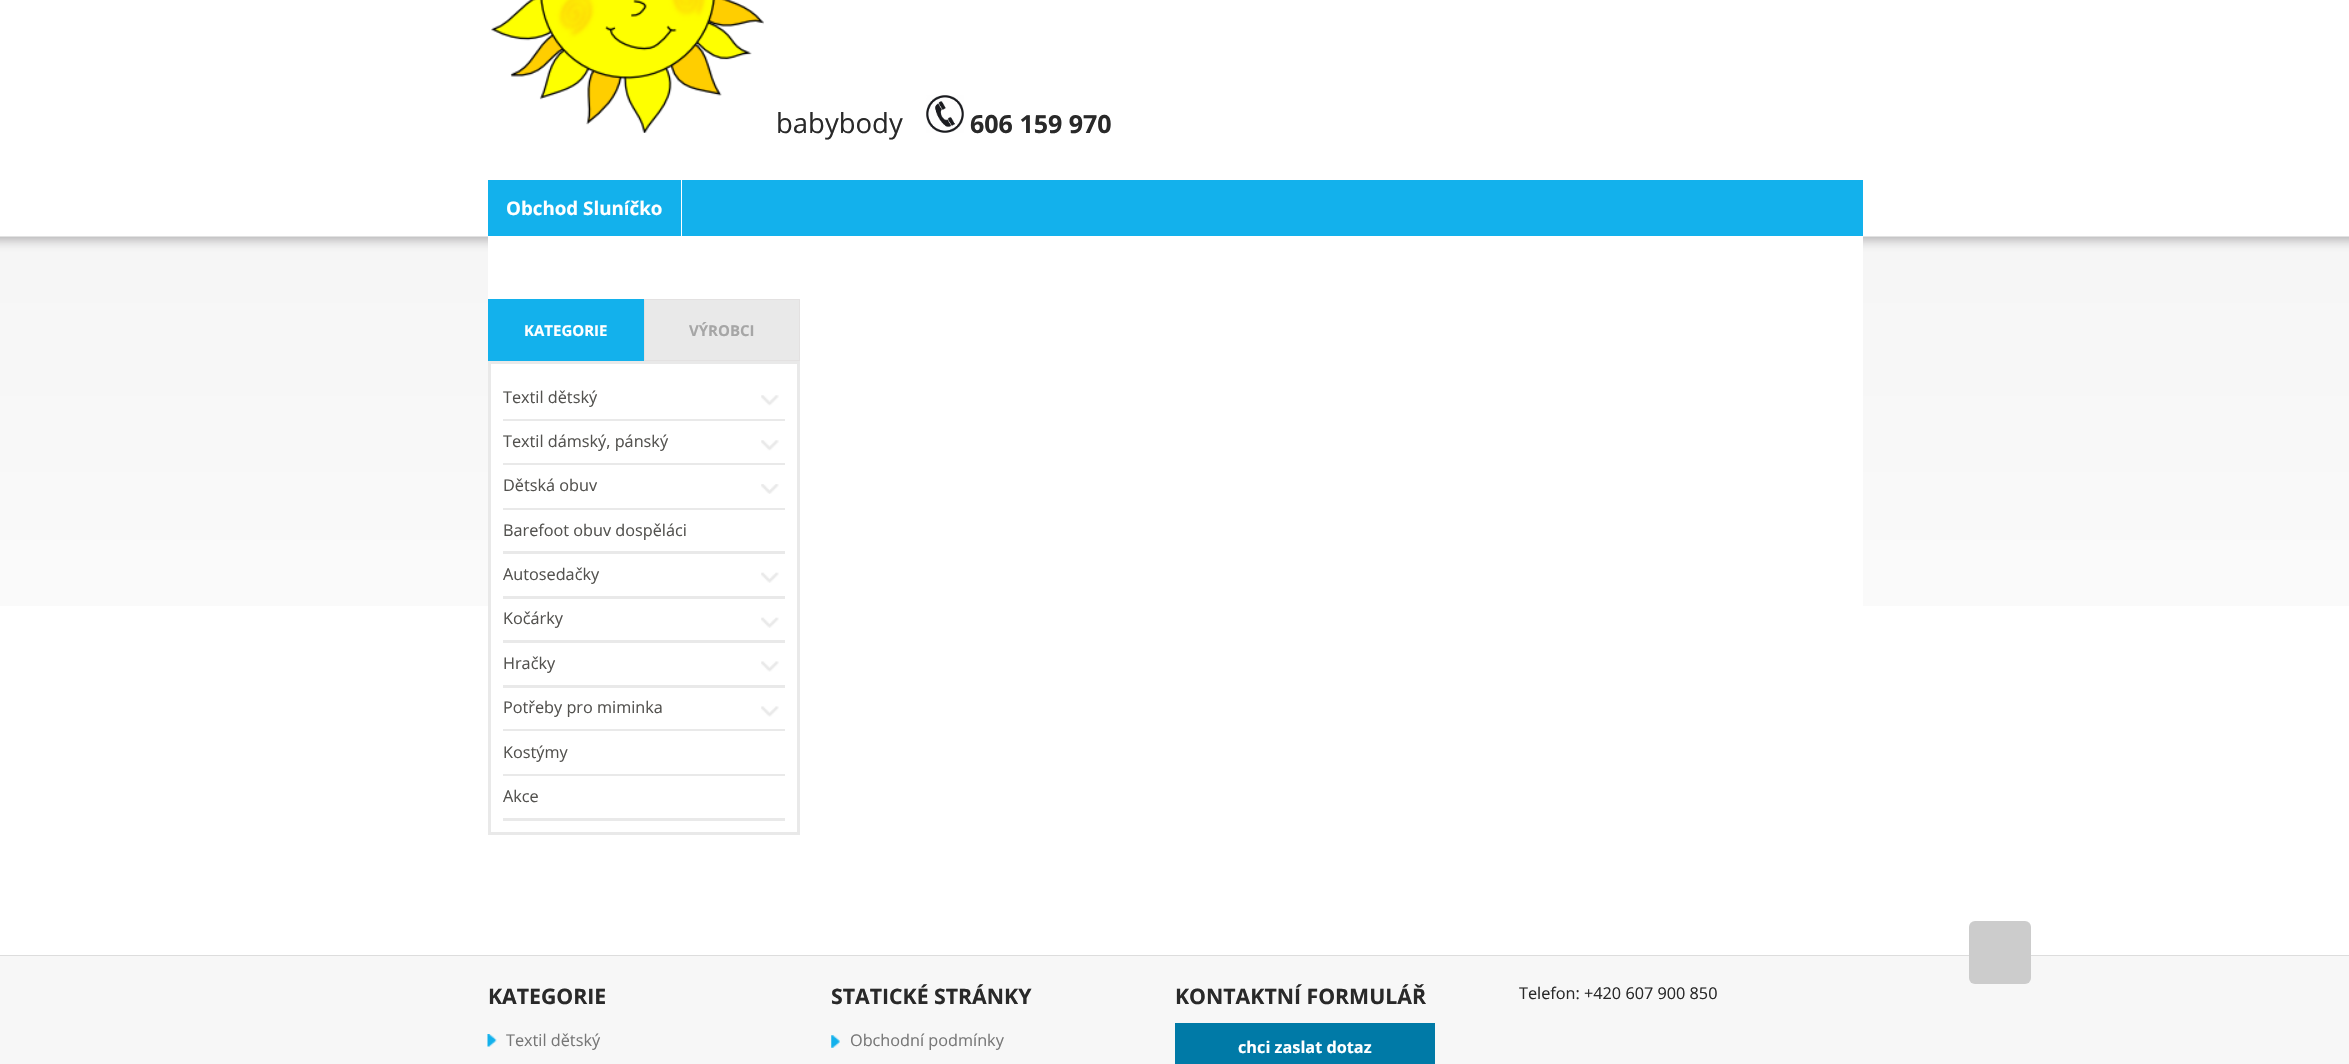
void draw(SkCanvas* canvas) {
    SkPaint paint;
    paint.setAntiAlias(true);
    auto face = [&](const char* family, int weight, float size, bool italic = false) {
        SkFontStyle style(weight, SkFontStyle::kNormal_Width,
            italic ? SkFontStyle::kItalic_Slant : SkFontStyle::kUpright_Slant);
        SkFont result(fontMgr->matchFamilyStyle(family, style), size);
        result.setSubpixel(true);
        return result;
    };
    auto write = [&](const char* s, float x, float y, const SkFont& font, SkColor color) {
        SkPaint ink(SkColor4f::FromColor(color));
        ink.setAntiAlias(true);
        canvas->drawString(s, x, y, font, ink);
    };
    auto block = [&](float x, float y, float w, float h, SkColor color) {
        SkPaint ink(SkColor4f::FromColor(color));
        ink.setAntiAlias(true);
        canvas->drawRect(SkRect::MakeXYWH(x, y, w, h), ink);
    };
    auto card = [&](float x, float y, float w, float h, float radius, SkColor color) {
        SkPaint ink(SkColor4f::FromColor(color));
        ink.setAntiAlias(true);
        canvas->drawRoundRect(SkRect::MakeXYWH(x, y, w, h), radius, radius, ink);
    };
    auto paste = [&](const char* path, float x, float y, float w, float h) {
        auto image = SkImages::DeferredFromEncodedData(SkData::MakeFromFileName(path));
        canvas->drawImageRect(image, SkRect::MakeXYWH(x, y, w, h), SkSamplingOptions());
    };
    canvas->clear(SK_ColorWHITE);
    paste("pic1.png", 491, 0, 273, 133);
    auto kFont1 = face("Open Sans", 400, 27.5f);
    write("babybody", 776, 133, kFont1, SkColorSetRGB(41, 41, 41));
    paste("pic2.png", 926, 95, 38, 38);
    auto kFont2 = face("Open Sans", 700, 25);
    write("606 159 970", 970, 133, kFont2, SkColorSetRGB(41, 41, 41));
    block(488, 180, 1375, 56, SkColorSetRGB(19, 177, 236));
    block(681, 180, 1, 56, SK_ColorWHITE);
    auto kFont3 = face("Open Sans", 700, 18.75f);
    write("Obchod Sluníčko", 506, 215, kFont3, SK_ColorWHITE);
    paste("pic3.png", 0, 236, 2349, 370);
    block(488, 236, 1375, 370, SK_ColorWHITE);
    block(488, 299, 156, 62, SkColorSetRGB(19, 177, 236));
    auto kFont4 = face("Open Sans", 700, 15);
    write("KATEGORIE", 524, 336, kFont4, SK_ColorWHITE);
    paint.setColor(SkColorSetRGB(233, 233, 233));
    canvas->drawRect(SkRect::MakeXYWH(644.5f, 299.5f, 155, 61), paint);
    paint.setStyle(SkPaint::kStroke_Style);
    paint.setStrokeWidth(1);
    paint.setColor(SkColorSetRGB(227, 225, 225));
    canvas->drawRect(SkRect::MakeXYWH(644.5f, 299.5f, 155, 61), paint);
    write("VÝROBCI", 689, 336, kFont4, SkColorSetRGB(166, 166, 166));
    paint.setStrokeWidth(3);
    paint.setColor(SkColorSetRGB(233, 233, 233));
    canvas->drawRect(SkRect::MakeXYWH(489.5f, 362.5f, 309, 471), paint);
    block(503, 419, 282, 2, SkColorSetRGB(233, 233, 233));
    auto kFont5 = face("Open Sans", 400, 16.25f);
    write("Textil dětský", 503, 403, kFont5, SkColorSetRGB(83, 82, 79));
    paste("pic4.png", 761, 395, 18, 11);
    block(503, 463, 282, 2, SkColorSetRGB(233, 233, 233));
    write("Textil dámský, pánský", 503, 447, kFont5, SkColorSetRGB(83, 82, 79));
    paste("pic5.png", 761, 440, 18, 11);
    block(503, 508, 282, 2, SkColorSetRGB(233, 233, 233));
    write("Dětská obuv", 503, 491, kFont5, SkColorSetRGB(83, 82, 79));
    paste("pic6.png", 761, 484, 18, 10);
    block(503, 551, 282, 3, SkColorSetRGB(233, 233, 233));
    write("Barefoot obuv dospěláci", 503, 536, kFont5, SkColorSetRGB(83, 82, 79));
    block(503, 596, 282, 3, SkColorSetRGB(233, 233, 233));
    write("Autosedačky", 503, 580, kFont5, SkColorSetRGB(83, 82, 79));
    paste("pic7.png", 761, 572, 18, 11);
    block(503, 640, 282, 3, SkColorSetRGB(233, 233, 233));
    write("Kočárky", 503, 624, kFont5, SkColorSetRGB(83, 82, 79));
    paste("pic7.png", 761, 617, 18, 11);
    block(503, 685, 282, 3, SkColorSetRGB(233, 233, 233));
    write("Hračky", 503, 669, kFont5, SkColorSetRGB(83, 82, 79));
    paste("pic8.png", 761, 661, 18, 11);
    block(503, 729, 282, 2, SkColorSetRGB(233, 233, 233));
    write("Potřeby pro miminka", 503, 713, kFont5, SkColorSetRGB(83, 82, 79));
    paste("pic8.png", 761, 706, 18, 11);
    block(503, 774, 282, 2, SkColorSetRGB(233, 233, 233));
    write("Kostýmy", 503, 758, kFont5, SkColorSetRGB(83, 82, 79));
    block(503, 818, 282, 3, SkColorSetRGB(233, 233, 233));
    write("Akce", 503, 802, kFont5, SkColorSetRGB(83, 82, 79));
    block(0, 956, 2349, 108, SkColorSetRGB(247, 247, 247));
    block(0, 955, 2349, 1, SkColorSetRGB(221, 221, 221));
    card(1969, 921, 62, 63, 6, SkColorSetRGB(204, 204, 204));
    auto kFont6 = face("Open Sans", 700, 21.25f);
    write("KATEGORIE", 488, 1004, kFont6, SkColorSetRGB(41, 41, 41));
    paste("pic9.png", 487, 1034, 10, 13);
    write("Textil dětský", 506, 1046, kFont5, SkColorSetRGB(119, 119, 119));
    write("STATICKÉ STRÁNKY", 831, 1004, kFont6, SkColorSetRGB(41, 41, 41));
    paste("pic10.png", 831, 1035, 9, 13);
    write("Obchodní podmínky", 850, 1046, kFont5, SkColorSetRGB(119, 119, 119));
    write("KONTAKTNÍ FORMULÁŘ", 1175, 1004, kFont6, SkColorSetRGB(41, 41, 41));
    block(1175, 1023, 260, 41, SkColorSetRGB(0, 122, 167));
    auto kFont7 = face("Open Sans", 700, 16.25f);
    write("chci zaslat dotaz", 1238, 1053, kFont7, SK_ColorWHITE);
    write("Telefon: +420 607 900 850", 1519, 999, kFont5, SkColorSetRGB(41, 41, 41));
}
